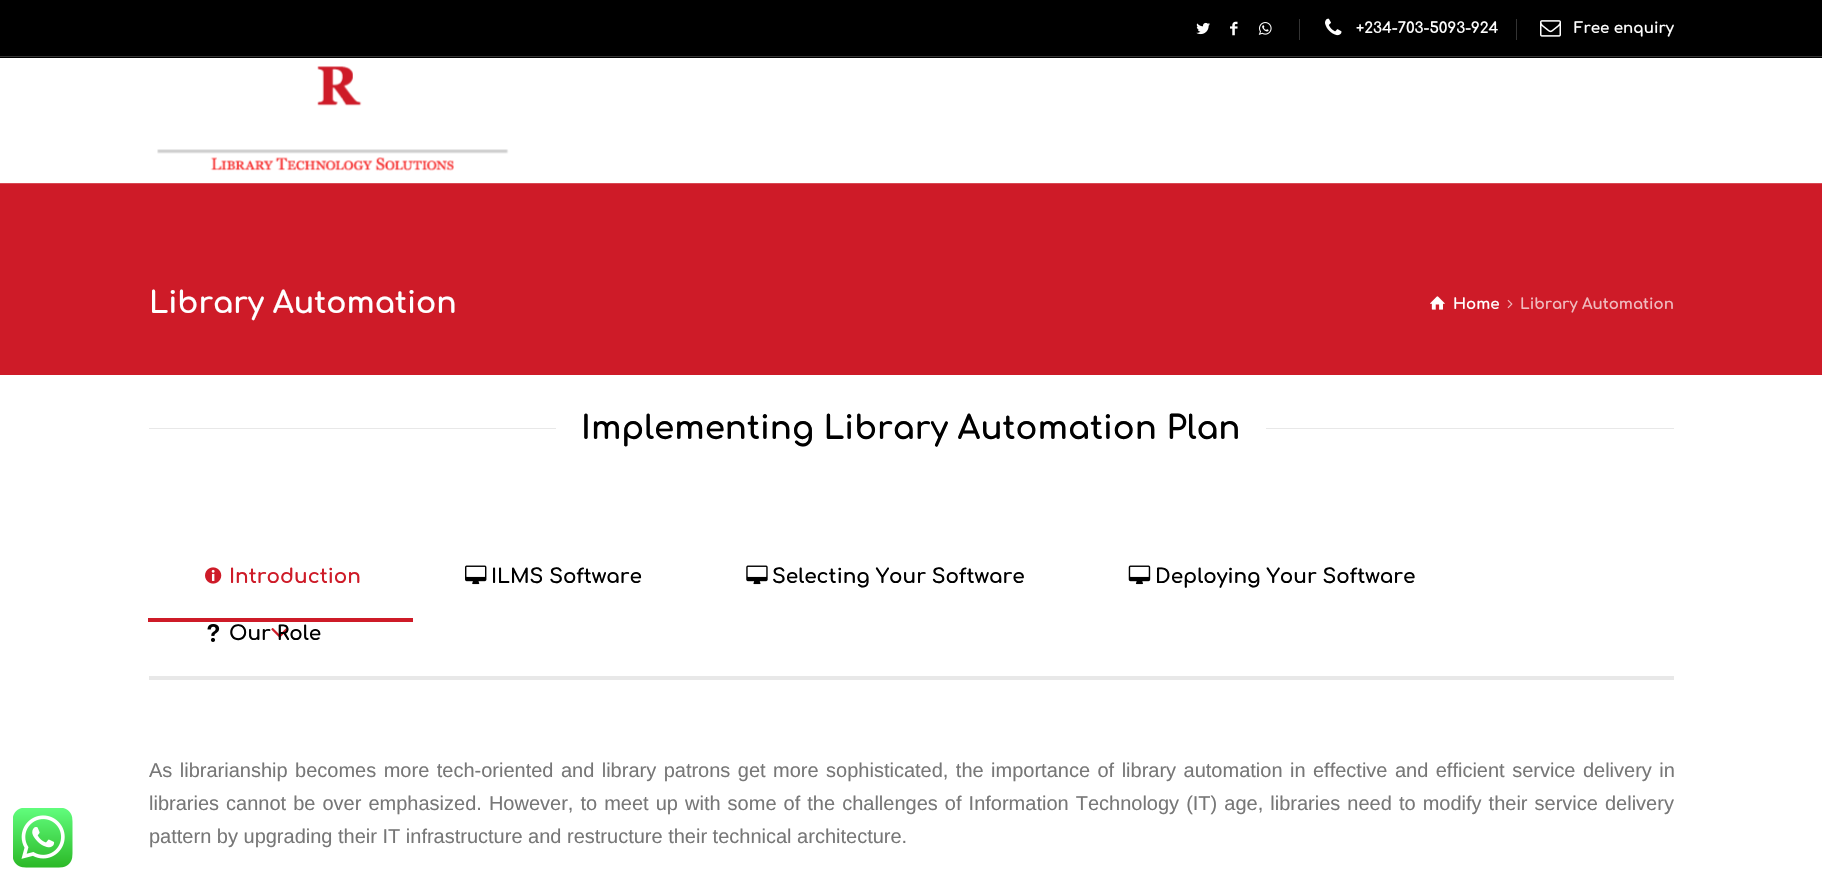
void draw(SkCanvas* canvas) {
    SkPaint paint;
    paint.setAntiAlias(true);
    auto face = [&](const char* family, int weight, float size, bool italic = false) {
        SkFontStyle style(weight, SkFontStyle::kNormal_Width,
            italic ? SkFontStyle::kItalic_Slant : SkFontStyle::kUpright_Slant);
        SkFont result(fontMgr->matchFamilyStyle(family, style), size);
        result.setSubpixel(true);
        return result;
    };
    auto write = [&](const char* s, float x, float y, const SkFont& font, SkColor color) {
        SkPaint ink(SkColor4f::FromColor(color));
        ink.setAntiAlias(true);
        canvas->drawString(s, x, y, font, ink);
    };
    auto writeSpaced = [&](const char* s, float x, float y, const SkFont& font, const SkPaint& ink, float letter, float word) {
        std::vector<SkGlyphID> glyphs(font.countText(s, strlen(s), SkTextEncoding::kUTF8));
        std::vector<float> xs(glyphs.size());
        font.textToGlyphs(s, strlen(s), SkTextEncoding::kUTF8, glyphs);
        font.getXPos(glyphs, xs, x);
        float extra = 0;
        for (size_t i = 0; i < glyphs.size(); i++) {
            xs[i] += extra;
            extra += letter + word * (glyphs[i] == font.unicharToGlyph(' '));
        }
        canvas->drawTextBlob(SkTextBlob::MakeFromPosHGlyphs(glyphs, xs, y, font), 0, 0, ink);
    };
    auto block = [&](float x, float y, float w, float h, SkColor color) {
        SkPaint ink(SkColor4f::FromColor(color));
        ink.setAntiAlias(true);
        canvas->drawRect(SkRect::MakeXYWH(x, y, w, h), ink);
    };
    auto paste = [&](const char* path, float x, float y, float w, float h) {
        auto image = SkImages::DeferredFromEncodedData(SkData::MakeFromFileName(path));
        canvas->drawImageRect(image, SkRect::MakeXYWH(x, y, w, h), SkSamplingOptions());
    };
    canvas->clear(SK_ColorWHITE);
    paste("pic1.png", 13, 808, 60, 60);
    block(0, 0, 1822, 58, SK_ColorBLACK);
    block(0, 56, 1822, 1, SkColorSetRGB(51, 51, 51));
    paste("pic2.png", 1196, 22, 14, 13);
    paste("pic3.png", 1230, 21, 8, 15);
    paste("pic4.png", 1258, 22, 14, 13);
    block(1299, 19, 1, 21, SkColorSetRGB(51, 51, 51));
    paste("pic5.png", 1325, 18, 17, 18);
    auto kFont1 = face("Comfortaa", 700, 15);
    write("+234-703-5093-924", 1356, 33, kFont1, SK_ColorWHITE);
    block(1516, 19, 1, 21, SkColorSetRGB(51, 51, 51));
    paste("pic6.png", 1540, 20, 21, 17);
    write("Free enquiry", 1574, 33, kFont1, SK_ColorWHITE);
    paste("pic7.png", 157, 66, 352, 105);
    block(0, 183, 1822, 1, SkColorSetRGB(216, 73, 83));
    block(0, 184, 1822, 191, SkColorSetRGB(206, 27, 40));
    auto kFont2 = face("Comfortaa", 700, 30);
    write("Library Automation", 149, 313, kFont2, SK_ColorWHITE);
    paste("pic8.png", 1430, 296, 15, 14);
    write("Home", 1453, 309, kFont1, SK_ColorWHITE);
    paste("pic9.png", 1507, 299, 6, 10);
    write("Library Automation", 1520, 309, kFont1, SkColorSetRGB(240, 187, 191));
    block(149, 428, 407, 1, SkColorSetRGB(232, 232, 232));
    auto kFont3 = face("Comfortaa", 700, 32.5f);
    write("Implementing Library Automation Plan", 581, 439, kFont3, SK_ColorBLACK);
    block(1266, 428, 408, 1, SkColorSetRGB(232, 232, 232));
    block(149, 676, 1525, 4, SkColorSetRGB(232, 232, 232));
    paste("pic10.png", 205, 567, 17, 17);
    auto kFont4 = face("Comfortaa", 700, 20);
    write("Introduction", 229, 583, kFont4, SkColorSetRGB(206, 27, 40));
    block(148, 618, 265, 4, SkColorSetRGB(206, 27, 40));
    paste("pic11.png", 271, 628, 17, 10);
    paste("pic12.png", 465, 565, 22, 20);
    write("ILMS Software", 491, 583, kFont4, SK_ColorBLACK);
    paste("pic13.png", 746, 565, 22, 20);
    write("Selecting Your Software", 772, 583, kFont4, SK_ColorBLACK);
    paste("pic14.png", 1128, 565, 23, 20);
    write("Deploying Your Software", 1155, 583, kFont4, SK_ColorBLACK);
    paste("pic15.png", 207, 624, 13, 18);
    write("Our Role", 229, 640, kFont4, SK_ColorBLACK);
    auto kFont5 = face("Liberation Sans", 400, 20);
    paint.setColor(SkColorSetRGB(119, 119, 119));
    writeSpaced("As librarianship becomes more tech-oriented and library patrons get more sophisticated, the importance of library automation in effective and efficient service delivery in", 149, 777, kFont5, paint, 0, 1.9f);
    writeSpaced("libraries cannot be over emphasized. However, to meet up with some of the challenges of Information Technology (IT) age, libraries need to modify their service delivery", 149, 810, kFont5, paint, 0, 1.5f);
    write("pattern by upgrading their IT infrastructure and restructure their technical architecture.", 149, 843, kFont5, SkColorSetRGB(119, 119, 119));
}
